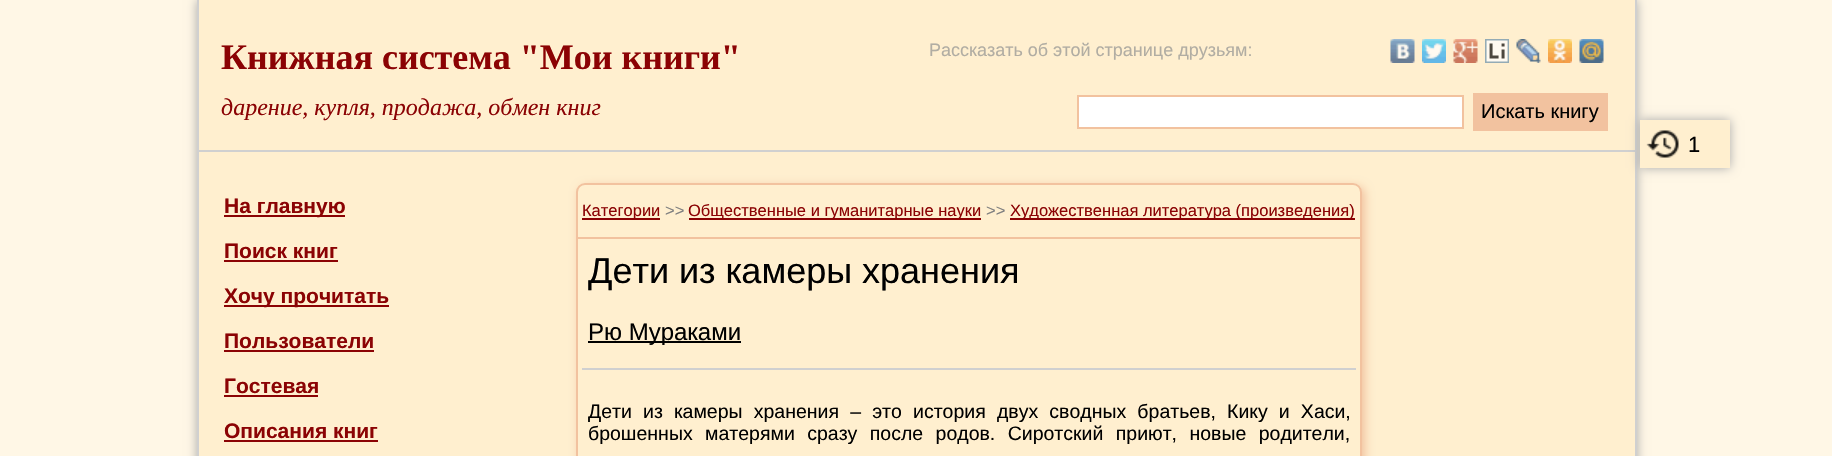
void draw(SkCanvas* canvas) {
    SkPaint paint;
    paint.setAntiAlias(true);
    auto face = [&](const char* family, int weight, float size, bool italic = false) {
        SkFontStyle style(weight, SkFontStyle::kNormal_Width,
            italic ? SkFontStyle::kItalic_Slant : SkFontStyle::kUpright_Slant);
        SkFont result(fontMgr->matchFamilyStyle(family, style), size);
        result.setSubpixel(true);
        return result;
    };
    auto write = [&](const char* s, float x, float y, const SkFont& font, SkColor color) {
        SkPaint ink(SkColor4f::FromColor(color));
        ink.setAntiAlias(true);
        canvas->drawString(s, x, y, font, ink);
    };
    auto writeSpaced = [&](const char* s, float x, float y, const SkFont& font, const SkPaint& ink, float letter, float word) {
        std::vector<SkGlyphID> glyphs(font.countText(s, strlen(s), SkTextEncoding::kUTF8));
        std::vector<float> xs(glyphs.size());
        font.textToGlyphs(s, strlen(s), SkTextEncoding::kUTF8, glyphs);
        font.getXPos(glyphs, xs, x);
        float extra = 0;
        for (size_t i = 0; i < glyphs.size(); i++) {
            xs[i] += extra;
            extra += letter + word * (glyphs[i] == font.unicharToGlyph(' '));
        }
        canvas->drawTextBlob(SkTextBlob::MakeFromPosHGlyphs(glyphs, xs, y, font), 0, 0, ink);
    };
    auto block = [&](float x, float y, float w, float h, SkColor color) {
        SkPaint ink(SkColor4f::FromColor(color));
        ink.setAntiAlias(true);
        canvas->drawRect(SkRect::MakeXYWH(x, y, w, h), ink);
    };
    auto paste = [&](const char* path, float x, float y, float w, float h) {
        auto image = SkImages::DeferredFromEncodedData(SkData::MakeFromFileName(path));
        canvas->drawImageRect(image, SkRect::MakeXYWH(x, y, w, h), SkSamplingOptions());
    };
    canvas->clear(SkColorSetRGB(255, 247, 230));
    paint.setColor(SkColorSetRGB(170, 170, 170));
    paint.setMaskFilter(SkMaskFilter::MakeBlur(kNormal_SkBlurStyle, 5));
    canvas->drawRect(SkRect::MakeXYWH(197, 0, 1440, 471), paint);
    paint.setMaskFilter(nullptr);
    block(199, 0, 1436, 456, SkColorSetRGB(255, 239, 207));
    block(1635, 0, 2, 456, SkColorSetRGB(208, 208, 208));
    block(197, 0, 2, 456, SkColorSetRGB(208, 208, 208));
    block(198, 150, 1437, 2, SkColorSetRGB(208, 208, 208));
    auto kFont1 = face("Liberation Serif", 700, 36);
    write("Книжная система \"Мои книги\"", 221, 69, kFont1, SkColorSetRGB(139, 3, 4));
    auto kFont2 = face("Liberation Sans", 400, 18);
    write("Рассказать об этой странице друзьям:", 929, 56, kFont2, SkColorSetRGB(177, 173, 163));
    paste("pic1.png", 1390, 39, 25, 24);
    paste("pic2.png", 1422, 39, 24, 24);
    paste("pic3.png", 1453, 39, 25, 24);
    paste("pic4.png", 1485, 39, 24, 24);
    paste("pic5.png", 1516, 39, 25, 24);
    paste("pic6.png", 1548, 39, 24, 24);
    paste("pic7.png", 1579, 39, 25, 24);
    auto kFont3 = face("Liberation Serif", 400, 24, true);
    write("дарение, купля, продажа, обмен книг", 221, 115, kFont3, SkColorSetRGB(139, 3, 4));
    paint.setColor(SK_ColorWHITE);
    canvas->drawRect(SkRect::MakeXYWH(1078, 96, 385, 32), paint);
    paint.setStyle(SkPaint::kStroke_Style);
    paint.setStrokeWidth(2);
    paint.setColor(SkColorSetRGB(242, 194, 159));
    canvas->drawRect(SkRect::MakeXYWH(1078, 96, 385, 32), paint);
    block(1473, 93, 135, 38, SkColorSetRGB(242, 194, 159));
    auto kFont4 = face("Liberation Sans", 400, 20);
    write("Искать книгу", 1481, 118, kFont4, SK_ColorBLACK);
    paint.setStyle(SkPaint::kFill_Style);
    paint.setColor(SkColorSetRGB(170, 170, 170));
    paint.setMaskFilter(SkMaskFilter::MakeBlur(kNormal_SkBlurStyle, 5));
    canvas->drawRect(SkRect::MakeXYWH(1640, 120, 90, 48), paint);
    paint.setMaskFilter(nullptr);
    block(1640, 120, 90, 48, SkColorSetRGB(255, 239, 207));
    paste("pic8.png", 1646, 130, 33, 28);
    auto kFont5 = face("Liberation Sans", 400, 22);
    write("1", 1688, 152, kFont5, SK_ColorBLACK);
    block(224, 215, 121, 2, SkColorSetRGB(139, 3, 4));
    auto kFont6 = face("Liberation Sans", 700, 21);
    write("На главную", 224, 213, kFont6, SkColorSetRGB(139, 3, 4));
    write("Поиск книг", 224, 258, kFont6, SkColorSetRGB(139, 3, 4));
    block(224, 260, 114, 2, SkColorSetRGB(139, 3, 4));
    block(224, 305, 165, 2, SkColorSetRGB(139, 3, 4));
    write("Хочу прочитать", 224, 303, kFont6, SkColorSetRGB(139, 3, 4));
    write("Пользователи", 224, 348, kFont6, SkColorSetRGB(139, 3, 4));
    block(224, 350, 150, 2, SkColorSetRGB(139, 3, 4));
    write("Гостевая", 224, 393, kFont6, SkColorSetRGB(139, 3, 4));
    block(224, 395, 94, 2, SkColorSetRGB(139, 3, 4));
    write("Описания книг", 224, 438, kFont6, SkColorSetRGB(139, 3, 4));
    block(224, 440, 154, 2, SkColorSetRGB(139, 3, 4));
    canvas->save();
    canvas->clipPath(SkPathBuilder(SkPathFillType::kEvenOdd).moveTo(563, 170).lineTo(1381, 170).lineTo(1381, 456).lineTo(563, 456).close().moveTo(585, 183).lineTo(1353, 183).cubicTo(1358, 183, 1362, 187, 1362, 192).lineTo(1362, 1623).cubicTo(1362, 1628, 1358, 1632, 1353, 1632).lineTo(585, 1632).cubicTo(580, 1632, 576, 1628, 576, 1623).lineTo(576, 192).cubicTo(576, 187, 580, 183, 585, 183).close().detach(), true);
    paint.setColor(SkColorSetRGB(242, 194, 159));
    paint.setMaskFilter(SkMaskFilter::MakeBlur(kNormal_SkBlurStyle, 5));
    canvas->drawRoundRect(SkRect::MakeXYWH(579, 186, 786, 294), 9, 9, paint);
    paint.setMaskFilter(nullptr);
    canvas->restore();
    paint.setStyle(SkPaint::kStroke_Style);
    canvas->drawRoundRect(SkRect::MakeXYWH(577, 184, 784, 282), 8, 8, paint);
    block(578, 237, 783, 2, SkColorSetRGB(242, 194, 159));
    block(582, 218, 78, 2, SkColorSetRGB(139, 3, 4));
    auto kFont7 = face("Liberation Sans", 400, 16.5f);
    write("Категории", 582, 216, kFont7, SkColorSetRGB(139, 3, 4));
    write(">>", 665, 216, kFont7, SkColorSetRGB(128, 128, 128));
    block(689, 218, 292, 2, SkColorSetRGB(139, 3, 4));
    write("Общественные и гуманитарные науки", 688, 216, kFont7, SkColorSetRGB(139, 3, 4));
    write(">>", 986, 216, kFont7, SkColorSetRGB(128, 128, 128));
    block(1010, 218, 345, 2, SkColorSetRGB(139, 3, 4));
    write("Художественная литература (произведения)", 1010, 216, kFont7, SkColorSetRGB(139, 3, 4));
    block(582, 368, 774, 2, SkColorSetRGB(208, 208, 208));
    auto kFont8 = face("Liberation Sans", 400, 36);
    write("Дети из камеры хранения", 588, 283, kFont8, SK_ColorBLACK);
    block(588, 341, 153, 2, SK_ColorBLACK);
    auto kFont9 = face("Liberation Sans", 400, 24);
    write("Рю Мураками", 588, 340, kFont9, SK_ColorBLACK);
    auto kFont10 = face("Liberation Sans", 400, 19.5f);
    paint.setStyle(SkPaint::kFill_Style);
    paint.setColor(SK_ColorBLACK);
    writeSpaced("Дети из камеры хранения – это история двух сводных братьев, Кику и Хаси,", 588, 418, kFont10, paint, 0, 5.75f);
    writeSpaced("брошенных матерями сразу после родов. Сиротский приют, новые родители,", 588, 440, kFont10, paint, 0, 7);
}
